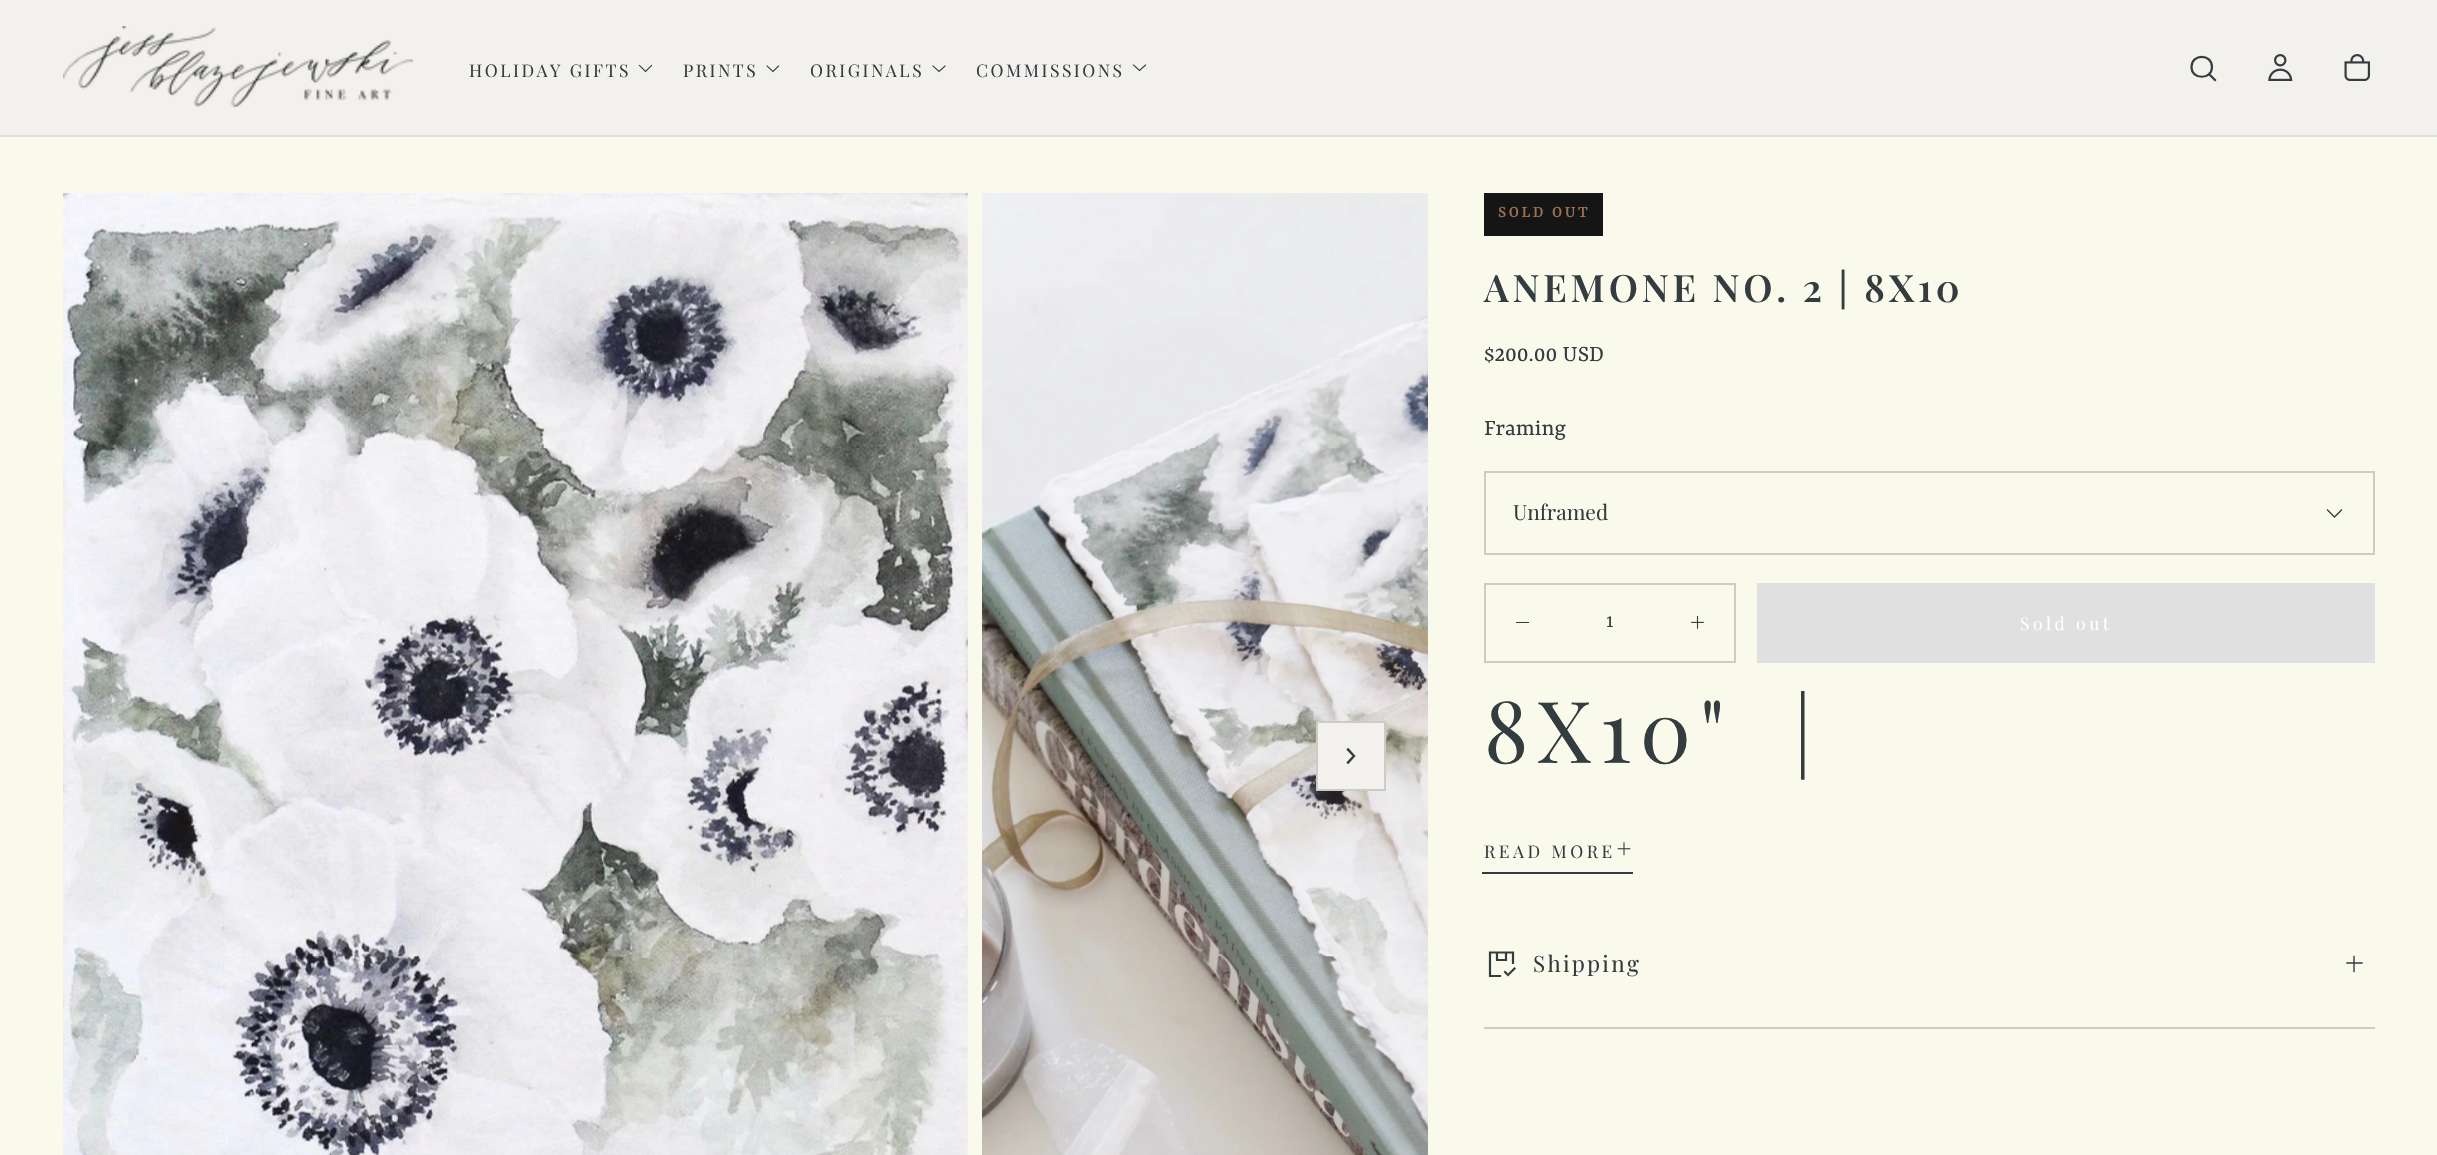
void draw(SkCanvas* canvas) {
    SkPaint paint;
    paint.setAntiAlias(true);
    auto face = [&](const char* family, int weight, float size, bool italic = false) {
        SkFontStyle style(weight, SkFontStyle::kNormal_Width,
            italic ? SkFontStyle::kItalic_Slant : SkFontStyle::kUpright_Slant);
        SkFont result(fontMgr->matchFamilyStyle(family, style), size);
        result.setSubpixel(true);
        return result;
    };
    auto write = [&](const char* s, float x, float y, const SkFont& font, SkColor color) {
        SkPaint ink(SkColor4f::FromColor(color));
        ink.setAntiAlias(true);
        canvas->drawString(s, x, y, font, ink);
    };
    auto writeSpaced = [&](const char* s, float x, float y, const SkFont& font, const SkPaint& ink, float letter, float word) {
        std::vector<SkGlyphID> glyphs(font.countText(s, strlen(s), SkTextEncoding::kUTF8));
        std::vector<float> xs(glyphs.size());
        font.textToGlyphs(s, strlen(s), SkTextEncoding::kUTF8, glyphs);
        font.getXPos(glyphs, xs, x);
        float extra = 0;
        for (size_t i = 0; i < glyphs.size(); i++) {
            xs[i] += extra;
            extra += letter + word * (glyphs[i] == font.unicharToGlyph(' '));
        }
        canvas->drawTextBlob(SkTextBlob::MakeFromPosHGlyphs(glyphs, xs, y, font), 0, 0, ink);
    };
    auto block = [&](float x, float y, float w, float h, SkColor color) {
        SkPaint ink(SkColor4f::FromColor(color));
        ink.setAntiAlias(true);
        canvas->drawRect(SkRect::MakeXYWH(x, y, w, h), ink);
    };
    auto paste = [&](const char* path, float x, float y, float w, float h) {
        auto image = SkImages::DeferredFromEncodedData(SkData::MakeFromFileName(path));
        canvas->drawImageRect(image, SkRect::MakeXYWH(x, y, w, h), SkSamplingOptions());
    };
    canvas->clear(SkColorSetRGB(250, 250, 236));
    block(0, 0, 2437, 135, SkColorSetRGB(242, 241, 238));
    block(0, 135, 2437, 2, SkColorSetRGB(223, 223, 221));
    paste("pic1.png", 63, 26, 350, 81);
    auto kFont1 = face("Playfair Display", 400, 17.5f);
    paint.setColor(SkColorSetRGB(51, 61, 64));
    writeSpaced("HOLIDAY GIFTS", 469, 77, kFont1, paint, 2.5f, 0);
    paint.setStyle(SkPaint::kStroke_Style);
    paint.setStrokeWidth(1.1f);
    paint.setStrokeCap(SkPaint::kSquare_Cap);
    canvas->drawPath(SkPathBuilder().moveTo(651.5f, 65.5f).lineTo(645.5f, 71.5f).lineTo(639.5f, 65.5f).detach(), paint);
    paint.setStyle(SkPaint::kFill_Style);
    writeSpaced("PRINTS", 683, 77, kFont1, paint, 2.5f, 0);
    paint.setStyle(SkPaint::kStroke_Style);
    canvas->drawPath(SkPathBuilder().moveTo(778.5f, 66).lineTo(773, 71.5f).lineTo(767, 66).detach(), paint);
    paint.setStyle(SkPaint::kFill_Style);
    writeSpaced("ORIGINALS", 810, 77, kFont1, paint, 2.5f, 0);
    paint.setStyle(SkPaint::kStroke_Style);
    canvas->drawPath(SkPathBuilder().moveTo(945, 66).lineTo(939, 71.5f).lineTo(933, 66).detach(), paint);
    paint.setStyle(SkPaint::kFill_Style);
    writeSpaced("COMMISSIONS", 976, 77, kFont1, paint, 2.5f, 0);
    paint.setStyle(SkPaint::kStroke_Style);
    canvas->drawPath(SkPathBuilder().moveTo(1145.5f, 65).lineTo(1139.5f, 70.5f).lineTo(1133.5f, 65).detach(), paint);
    paint.setStrokeWidth(2.2f);
    canvas->drawPath(SkPathBuilder().moveTo(2215, 80).lineTo(2209, 74).moveTo(2212, 67).cubicTo(2212, 80, 2191.5f, 80, 2191.5f, 67).cubicTo(2191.5f, 53.5f, 2212, 53.5f, 2212, 67).close().detach(), paint);
    paste("pic2.png", 2268, 54, 25, 27);
    paste("pic3.png", 2344, 54, 26, 27);
    paste("pic4.png", 63, 193, 905, 962);
    paste("pic5.png", 982, 193, 446, 962);
    paint.setStyle(SkPaint::kFill_Style);
    paint.setColor(SkColorSetRGB(242, 241, 238));
    canvas->drawRect(SkRect::MakeXYWH(1317, 722, 68, 68), paint);
    paint.setStyle(SkPaint::kStroke_Style);
    paint.setStrokeWidth(2);
    paint.setStrokeCap(SkPaint::kButt_Cap);
    paint.setColor(SkColorSetRGB(204, 203, 198));
    canvas->drawRect(SkRect::MakeXYWH(1317, 722, 68, 68), paint);
    paint.setStrokeWidth(2.4f);
    paint.setStrokeCap(SkPaint::kSquare_Cap);
    paint.setColor(SkColorSetRGB(51, 61, 64));
    canvas->drawPath(SkPathBuilder().moveTo(1348, 762.5f).lineTo(1354, 756).lineTo(1348, 749.5f).detach(), paint);
    block(1484, 193, 119, 43, SkColorSetRGB(21, 21, 21));
    auto kFont2 = face("Yrsa", 500, 17.5f);
    paint.setStyle(SkPaint::kFill_Style);
    paint.setColor(SkColorSetRGB(158, 112, 81));
    writeSpaced("SOLD OUT", 1498, 217, kFont2, paint, 2.5f, 0);
    auto kFont3 = face("Playfair Display", 600, 37.75f);
    paint.setColor(SkColorSetRGB(51, 61, 64));
    writeSpaced("ANEMONE NO. 2 | 8X10", 1484, 302, kFont3, paint, 3.75f, 0);
    auto kFont4 = face("Yrsa", 400, 24.5f);
    write("$200.00 USD", 1484, 361, kFont4, SkColorSetRGB(51, 61, 64));
    write("Framing", 1484, 435, kFont4, SkColorSetRGB(51, 61, 64));
    paint.setStyle(SkPaint::kStroke_Style);
    paint.setStrokeWidth(2);
    paint.setStrokeCap(SkPaint::kButt_Cap);
    paint.setColor(SkColorSetRGB(204, 203, 198));
    canvas->drawRect(SkRect::MakeXYWH(1485, 472, 889, 82), paint);
    auto kFont5 = face("Playfair Display", 400, 21);
    write("Unframed", 1513, 520, kFont5, SkColorSetRGB(51, 61, 64));
    paint.setStrokeWidth(1.3f);
    paint.setStrokeCap(SkPaint::kSquare_Cap);
    paint.setColor(SkColorSetRGB(51, 61, 64));
    canvas->drawPath(SkPathBuilder().moveTo(2327.5f, 510).lineTo(2334.5f, 517).lineTo(2341.5f, 510).detach(), paint);
    paint.setStrokeWidth(2);
    paint.setStrokeCap(SkPaint::kButt_Cap);
    paint.setColor(SkColorSetRGB(204, 203, 198));
    canvas->drawRect(SkRect::MakeXYWH(1485, 584, 250, 78), paint);
    block(1516, 622, 13, 1, SkColorSetRGB(51, 61, 64));
    auto kFont6 = face("Yrsa", 400, 21);
    write("1", 1606, 627, kFont6, SkColorSetRGB(51, 61, 64));
    paste("pic6.png", 1691, 616, 13, 13);
    block(1757, 583, 618, 80, SkColorSetRGB(224, 224, 224));
    paint.setStyle(SkPaint::kFill_Style);
    paint.setColor(SK_ColorWHITE);
    writeSpaced("Sold out", 2020, 630, kFont1, paint, 3.5f, 0);
    canvas->save();
    canvas->clipRect(SkRect::MakeXYWH(1484, 691, 891, 118));
    auto kFont7 = face("Playfair Display", 400, 85.5f);
    paint.setColor(SkColorSetRGB(51, 61, 64));
    writeSpaced("8X10\"  |", 1484, 763, kFont7, paint, 8.5f, 0);
    canvas->restore();
    writeSpaced("READ MORE", 1484, 858, kFont1, paint, 3.5f, 0);
    paste("pic7.png", 1617, 842, 14, 14);
    block(1482, 872, 151, 2, SkColorSetRGB(51, 61, 64));
    block(1484, 1027, 891, 2, SkColorSetRGB(204, 203, 198));
    paint.setStyle(SkPaint::kStroke_Style);
    paint.setStrokeWidth(2.2f);
    paint.setStrokeCap(SkPaint::kSquare_Cap);
    canvas->drawPath(SkPathBuilder().moveTo(1500, 976).lineTo(1490, 976).lineTo(1490, 952.5f).lineTo(1513, 952.5f).lineTo(1513, 963).moveTo(1497, 952.5f).lineTo(1497, 960).lineTo(1506, 960).lineTo(1506, 952.5f).moveTo(1505, 972).lineTo(1508, 975).lineTo(1514.5f, 968.5f).detach(), paint);
    auto kFont8 = face("Playfair Display", 400, 22.5f);
    paint.setStyle(SkPaint::kFill_Style);
    writeSpaced("Shipping", 1533, 972, kFont8, paint, 2.25f, 0);
    paint.setStyle(SkPaint::kStroke_Style);
    paint.setStrokeWidth(1.4f);
    canvas->drawPath(SkPathBuilder().moveTo(2347, 963).lineTo(2362, 963).moveTo(2354, 956.5f).lineTo(2354, 971.5f).detach(), paint);
}
